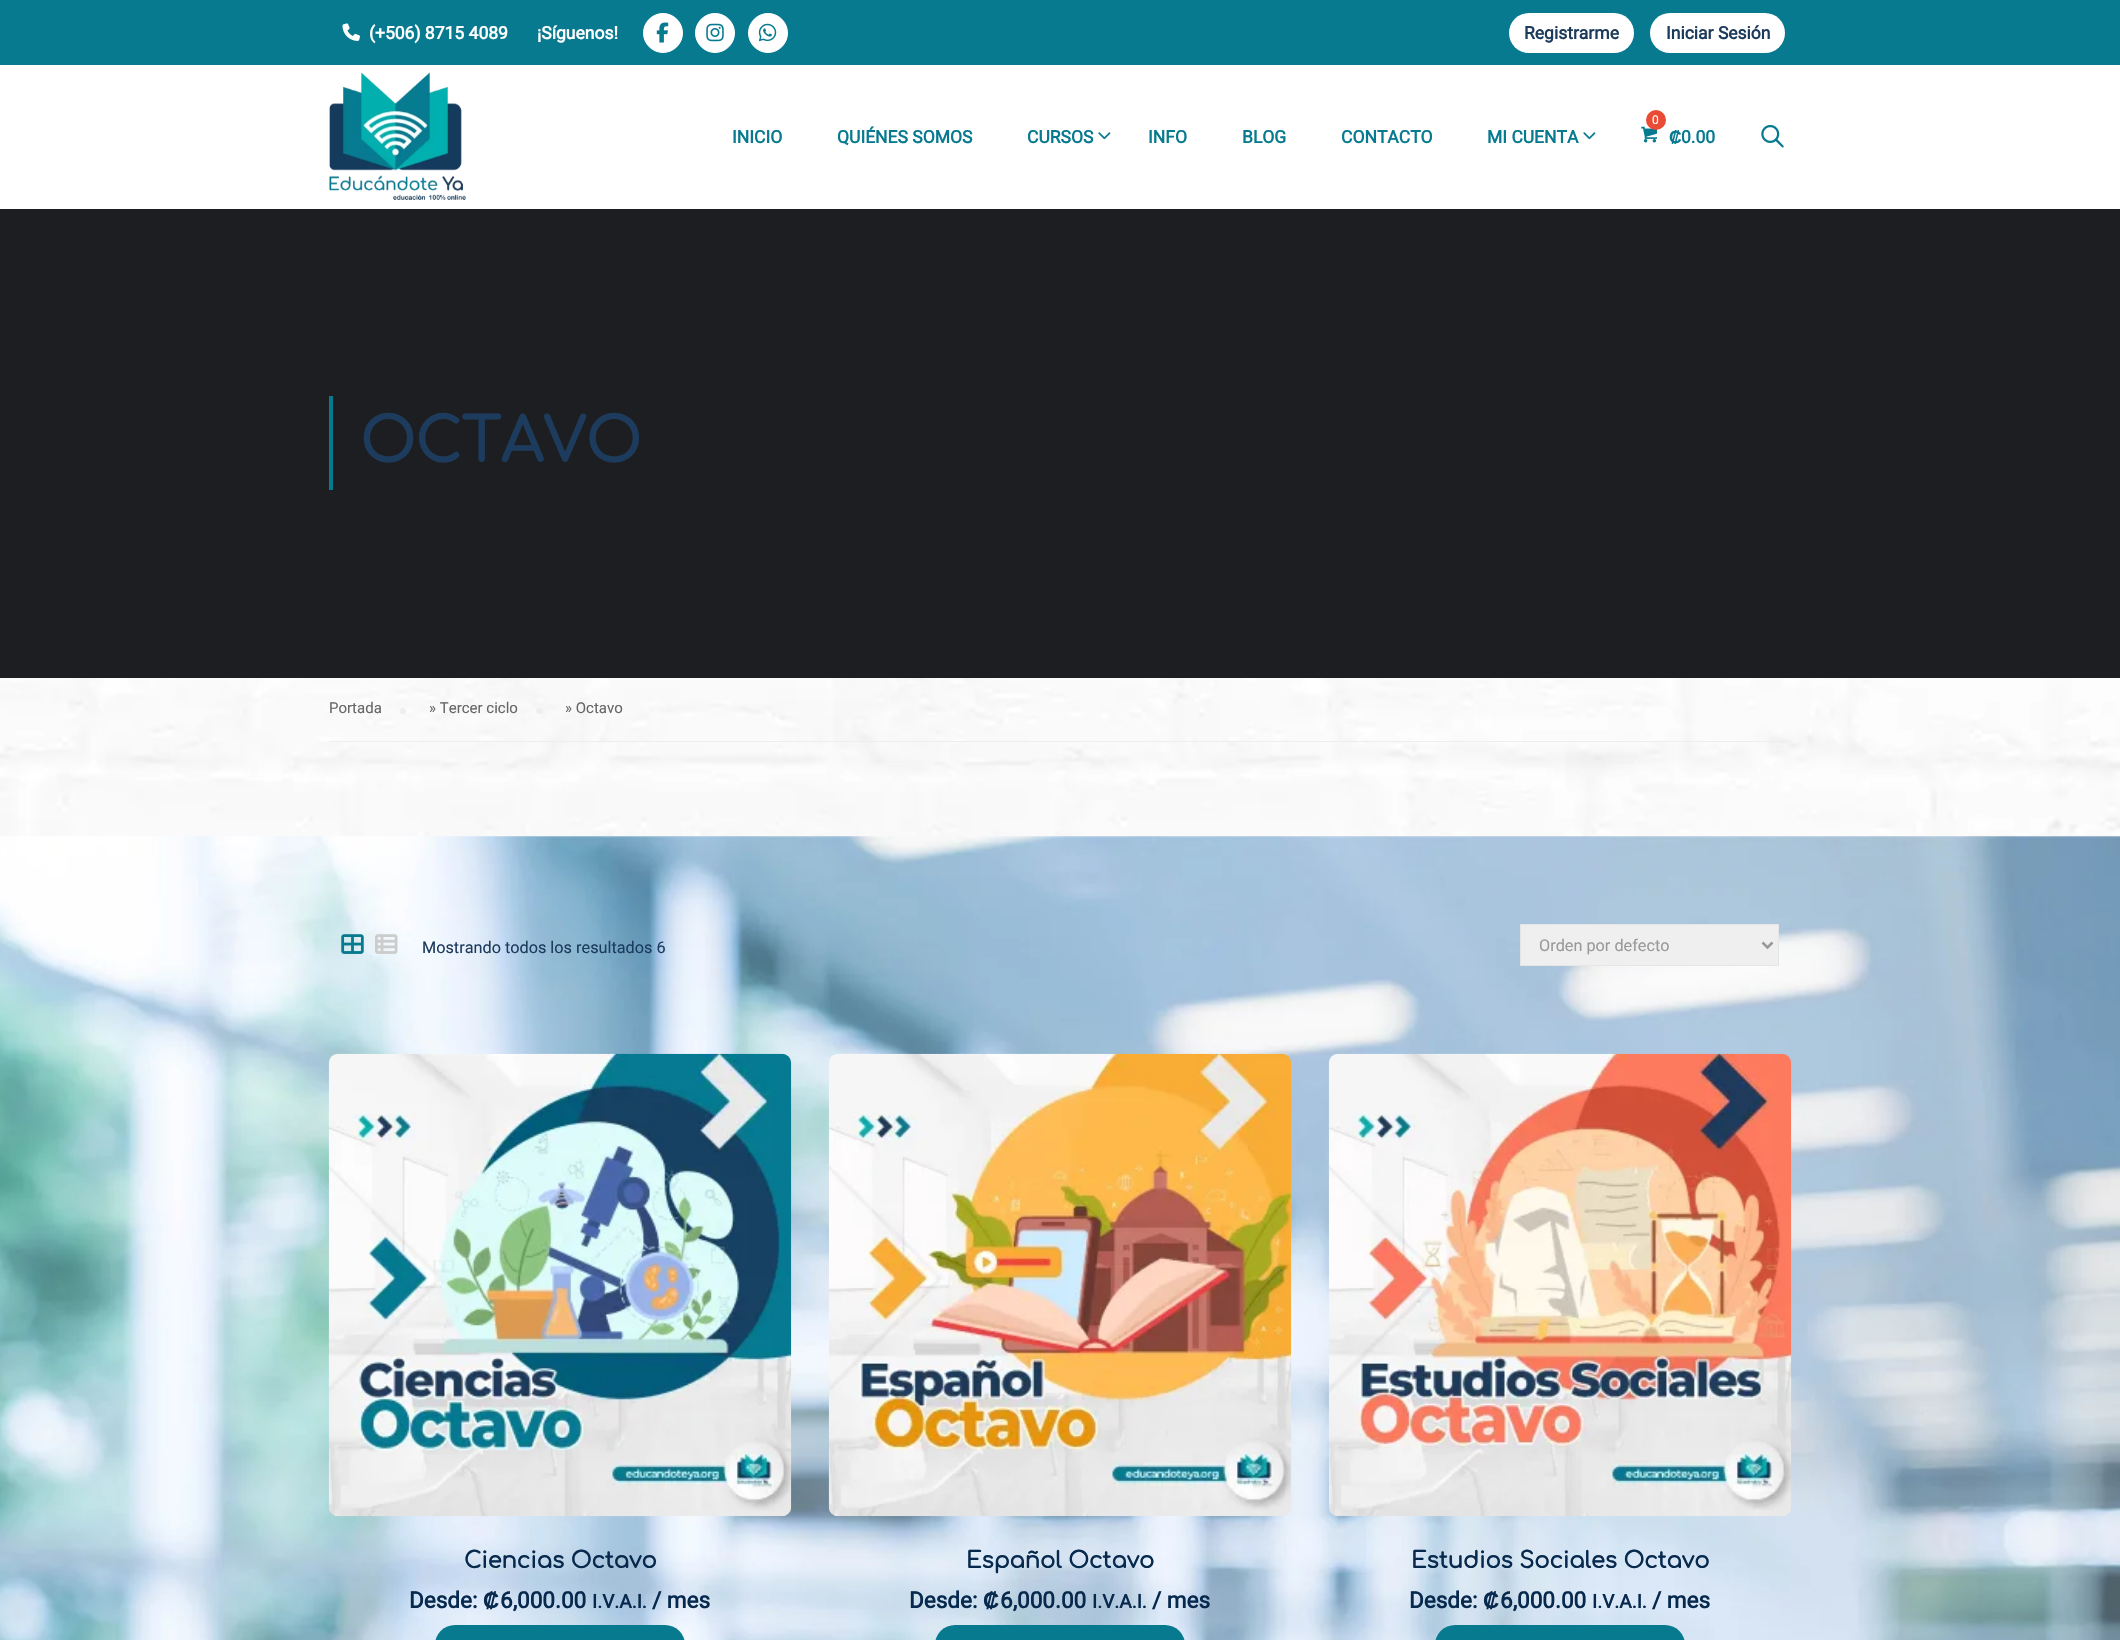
void draw(SkCanvas* canvas) {
    SkPaint paint;
    paint.setAntiAlias(true);
    auto face = [&](const char* family, int weight, float size, bool italic = false) {
        SkFontStyle style(weight, SkFontStyle::kNormal_Width,
            italic ? SkFontStyle::kItalic_Slant : SkFontStyle::kUpright_Slant);
        SkFont result(fontMgr->matchFamilyStyle(family, style), size);
        result.setSubpixel(true);
        return result;
    };
    auto write = [&](const char* s, float x, float y, const SkFont& font, SkColor color) {
        SkPaint ink(SkColor4f::FromColor(color));
        ink.setAntiAlias(true);
        canvas->drawString(s, x, y, font, ink);
    };
    auto block = [&](float x, float y, float w, float h, SkColor color) {
        SkPaint ink(SkColor4f::FromColor(color));
        ink.setAntiAlias(true);
        canvas->drawRect(SkRect::MakeXYWH(x, y, w, h), ink);
    };
    auto card = [&](float x, float y, float w, float h, float radius, SkColor color) {
        SkPaint ink(SkColor4f::FromColor(color));
        ink.setAntiAlias(true);
        canvas->drawRoundRect(SkRect::MakeXYWH(x, y, w, h), radius, radius, ink);
    };
    auto paste = [&](const char* path, float x, float y, float w, float h) {
        auto image = SkImages::DeferredFromEncodedData(SkData::MakeFromFileName(path));
        canvas->drawImageRect(image, SkRect::MakeXYWH(x, y, w, h), SkSamplingOptions());
    };
    canvas->clear(SK_ColorWHITE);
    block(0, 0, 2120, 65, SkColorSetRGB(8, 122, 144));
    paste("pic1.png", 342, 23, 18, 18);
    auto kFont1 = face("Roboto", 700, 17.5f);
    write("(+506) 8715 4089", 369, 39, kFont1, SK_ColorWHITE);
    write("¡Síguenos!", 537, 39, kFont1, SK_ColorWHITE);
    paint.setColor(SK_ColorWHITE);
    canvas->drawCircle(663, 33, 19.5f, paint);
    paint.setStyle(SkPaint::kStroke_Style);
    paint.setStrokeWidth(1);
    canvas->drawCircle(663, 33, 19.5f, paint);
    paste("pic2.png", 656, 22, 13, 21);
    paint.setStyle(SkPaint::kFill_Style);
    canvas->drawCircle(715, 33, 19.5f, paint);
    paint.setStyle(SkPaint::kStroke_Style);
    canvas->drawCircle(715, 33, 19.5f, paint);
    paste("pic3.png", 706, 23, 18, 19);
    paint.setStyle(SkPaint::kFill_Style);
    canvas->drawCircle(768, 33, 19.5f, paint);
    paint.setStyle(SkPaint::kStroke_Style);
    canvas->drawCircle(768, 33, 19.5f, paint);
    paste("pic4.png", 758, 23, 19, 19);
    card(1509, 13, 125, 40, 20, SK_ColorWHITE);
    write("Registrarme", 1524, 39, kFont1, SkColorSetRGB(29, 59, 92));
    card(1650, 13, 135, 40, 20, SK_ColorWHITE);
    write("Iniciar Sesión", 1666, 39, kFont1, SkColorSetRGB(29, 59, 92));
    paste("pic5.png", 329, 72, 137, 128);
    write("INICIO", 732, 143, kFont1, SkColorSetRGB(8, 122, 144));
    write("QUIÉNES SOMOS", 837, 143, kFont1, SkColorSetRGB(8, 122, 144));
    write("CURSOS", 1027, 143, kFont1, SkColorSetRGB(8, 122, 144));
    paste("pic6.png", 1098, 132, 13, 8);
    write("INFO", 1148, 143, kFont1, SkColorSetRGB(8, 122, 144));
    write("BLOG", 1242, 143, kFont1, SkColorSetRGB(8, 122, 144));
    write("CONTACTO", 1341, 143, kFont1, SkColorSetRGB(8, 122, 144));
    write("MI CUENTA", 1487, 143, kFont1, SkColorSetRGB(8, 122, 144));
    paste("pic6.png", 1583, 132, 13, 8);
    paste("pic7.png", 1641, 126, 16, 17);
    paint.setStyle(SkPaint::kFill_Style);
    paint.setColor(SkColorSetRGB(233, 75, 53));
    canvas->drawCircle(1656, 120, 10, paint);
    auto kFont2 = face("Roboto", 400, 12);
    write("0", 1652, 124, kFont2, SK_ColorWHITE);
    auto kFont3 = face("Liberation Sans", 700, 17.5f);
    write("₡", 1669, 143, kFont3, SkColorSetRGB(8, 122, 144));
    write("0.00", 1681, 143, kFont1, SkColorSetRGB(8, 122, 144));
    paste("pic8.png", 1761, 125, 23, 23);
    paste("pic9.png", 0, 678, 2120, 159);
    block(0, 209, 2120, 469, SkColorSetRGB(28, 30, 34));
    block(329, 396, 4, 94, SkColorSetRGB(8, 122, 144));
    auto kFont4 = face("Comfortaa", 700, 60);
    write("OCTAVO", 360, 462, kFont4, SkColorSetRGB(29, 59, 92));
    block(329, 741, 1462, 1, SkColorSetRGB(238, 238, 238));
    auto kFont5 = face("Roboto", 400, 15);
    write("Portada", 329, 713, kFont5, SkColorSetRGB(102, 102, 102));
    paint.setColor(SkColorSetRGB(238, 238, 238));
    canvas->drawCircle(403, 711, 3, paint);
    write("» Tercer ciclo", 429, 713, kFont5, SkColorSetRGB(102, 102, 102));
    card(536, 708, 7, 6, 3, SkColorSetRGB(238, 238, 238));
    write("» Octavo", 565, 713, kFont5, SkColorSetRGB(102, 102, 102));
    paste("pic10.png", 0, 836, 2120, 804);
    paste("pic11.png", 341, 934, 23, 20);
    paste("pic12.png", 375, 934, 23, 20);
    auto kFont6 = face("Roboto", 400, 16.25f);
    write("Mostrando todos los resultados 6", 422, 953, kFont6, SkColorSetRGB(29, 59, 92));
    paint.setColor(SkColorSetRGB(239, 239, 239));
    canvas->drawRect(SkRect::MakeXYWH(1520.5f, 924.5f, 258, 41), paint);
    paint.setStyle(SkPaint::kStroke_Style);
    paint.setColor(SkColorSetRGB(229, 229, 229));
    canvas->drawRect(SkRect::MakeXYWH(1520.5f, 924.5f, 258, 41), paint);
    paint.setStrokeWidth(2.5f);
    paint.setColor(SkColorSetRGB(153, 153, 153));
    canvas->drawPath(SkPathBuilder().moveTo(1762.5f, 942.5f).lineTo(1767.5f, 947.5f).lineTo(1772.5f, 942.5f).detach(), paint);
    write("Orden por defecto", 1539, 951, kFont6, SkColorSetRGB(153, 153, 153));
    paste("pic13.png", 328, 1053, 464, 464);
    auto kFont7 = face("Comfortaa", 700, 22.5f);
    write("Ciencias Octavo", 464, 1568, kFont7, SkColorSetRGB(7, 41, 77));
    auto kFont8 = face("Roboto", 700, 22.5f);
    write("Desde:", 409, 1608, kFont8, SkColorSetRGB(7, 41, 77));
    auto kFont9 = face("Liberation Sans", 700, 22.5f);
    write("₡", 483, 1608, kFont9, SkColorSetRGB(7, 41, 77));
    write("6,000.00", 500, 1608, kFont8, SkColorSetRGB(7, 41, 77));
    auto kFont10 = face("Roboto", 700, 19);
    write("I.V.A.I.", 592, 1608, kFont10, SkColorSetRGB(7, 41, 77));
    write("/ mes", 652, 1608, kFont8, SkColorSetRGB(7, 41, 77));
    card(435, 1625, 250, 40, 25, SkColorSetRGB(8, 122, 144));
    paste("pic14.png", 828, 1053, 464, 464);
    write("Español Octavo", 966, 1568, kFont7, SkColorSetRGB(7, 41, 77));
    write("Desde:", 909, 1608, kFont8, SkColorSetRGB(7, 41, 77));
    write("₡", 983, 1608, kFont9, SkColorSetRGB(7, 41, 77));
    write("6,000.00", 1000, 1608, kFont8, SkColorSetRGB(7, 41, 77));
    write("I.V.A.I.", 1092, 1608, kFont10, SkColorSetRGB(7, 41, 77));
    write("/ mes", 1152, 1608, kFont8, SkColorSetRGB(7, 41, 77));
    card(935, 1625, 250, 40, 25, SkColorSetRGB(8, 122, 144));
    paste("pic15.png", 1328, 1053, 464, 464);
    write("Estudios Sociales Octavo", 1411, 1568, kFont7, SkColorSetRGB(7, 41, 77));
    write("Desde:", 1409, 1608, kFont8, SkColorSetRGB(7, 41, 77));
    write("₡", 1483, 1608, kFont9, SkColorSetRGB(7, 41, 77));
    write("6,000.00", 1500, 1608, kFont8, SkColorSetRGB(7, 41, 77));
    write("I.V.A.I.", 1592, 1608, kFont10, SkColorSetRGB(7, 41, 77));
    write("/ mes", 1652, 1608, kFont8, SkColorSetRGB(7, 41, 77));
    card(1435, 1625, 250, 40, 25, SkColorSetRGB(8, 122, 144));
}
